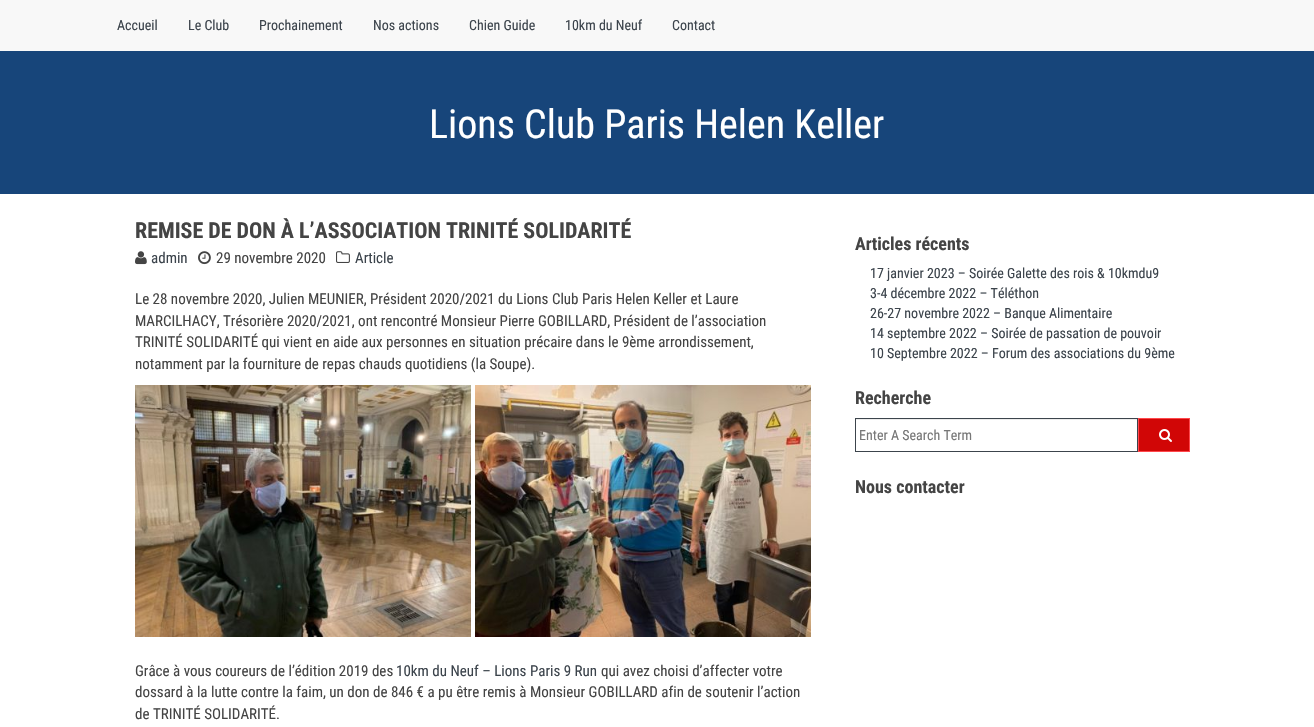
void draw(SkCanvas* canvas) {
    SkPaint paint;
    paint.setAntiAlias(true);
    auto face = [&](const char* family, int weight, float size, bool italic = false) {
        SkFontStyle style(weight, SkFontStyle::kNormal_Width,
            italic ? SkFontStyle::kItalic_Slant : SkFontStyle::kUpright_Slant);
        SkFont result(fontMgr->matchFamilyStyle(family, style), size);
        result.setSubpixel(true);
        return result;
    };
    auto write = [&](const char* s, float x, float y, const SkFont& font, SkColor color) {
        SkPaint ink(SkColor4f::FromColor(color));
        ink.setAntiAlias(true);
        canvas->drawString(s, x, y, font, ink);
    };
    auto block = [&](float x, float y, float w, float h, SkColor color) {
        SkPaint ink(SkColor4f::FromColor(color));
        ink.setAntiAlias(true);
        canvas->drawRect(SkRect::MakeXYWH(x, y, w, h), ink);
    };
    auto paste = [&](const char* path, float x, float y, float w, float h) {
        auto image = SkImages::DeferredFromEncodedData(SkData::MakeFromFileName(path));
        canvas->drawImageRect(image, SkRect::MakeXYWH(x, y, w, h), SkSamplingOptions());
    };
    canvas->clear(SkColorSetRGB(23, 69, 122));
    block(0, 0, 1314, 51, SkColorSetRGB(248, 248, 248));
    auto kFont1 = face("Roboto Condensed", 400, 14);
    write("Accueil", 117, 30, kFont1, SkColorSetRGB(60, 68, 76));
    write("Le Club", 188, 30, kFont1, SkColorSetRGB(60, 68, 76));
    write("Prochainement", 259, 30, kFont1, SkColorSetRGB(60, 68, 76));
    write("Nos actions", 373, 30, kFont1, SkColorSetRGB(60, 68, 76));
    write("Chien Guide", 469, 30, kFont1, SkColorSetRGB(60, 68, 76));
    write("10km du Neuf", 565, 30, kFont1, SkColorSetRGB(60, 68, 76));
    write("Contact", 672, 30, kFont1, SkColorSetRGB(60, 68, 76));
    auto kFont2 = face("Roboto Condensed", 400, 40);
    write("Lions Club Paris Helen Keller", 429, 138, kFont2, SK_ColorWHITE);
    block(0, 194, 1314, 533, SK_ColorWHITE);
    auto kFont3 = face("Roboto Condensed", 700, 22);
    write("REMISE DE DON À L’ASSOCIATION TRINITÉ SOLIDARITÉ", 135, 238, kFont3, SkColorSetRGB(68, 68, 68));
    paste("pic1.png", 135, 251, 12, 14);
    auto kFont4 = face("Roboto Condensed", 400, 15);
    write("admin", 151, 263, kFont4, SkColorSetRGB(60, 68, 76));
    paste("pic2.png", 198, 251, 13, 14);
    write("29 novembre 2020", 216, 263, kFont4, SkColorSetRGB(68, 68, 68));
    paste("pic3.png", 336, 251, 14, 12);
    write("Article", 355, 263, kFont4, SkColorSetRGB(60, 68, 76));
    write("Le 28 novembre 2020, Julien MEUNIER, Président 2020/2021 du Lions Club Paris Helen Keller et Laure", 135, 304, kFont4, SkColorSetRGB(68, 68, 68));
    write("MARCILHACY, Trésorière 2020/2021, ont rencontré Monsieur Pierre GOBILLARD, Président de l’association", 135, 326, kFont4, SkColorSetRGB(68, 68, 68));
    write("TRINITÉ SOLIDARITÉ qui vient en aide aux personnes en situation précaire dans le 9ème arrondissement,", 135, 347, kFont4, SkColorSetRGB(68, 68, 68));
    write("notamment par la fourniture de repas chauds quotidiens (la Soupe).", 135, 369, kFont4, SkColorSetRGB(68, 68, 68));
    paste("pic4.png", 135, 385, 336, 252);
    paste("pic5.png", 475, 385, 336, 252);
    write("Grâce à vous coureurs de l’édition 2019 des", 135, 676, kFont4, SkColorSetRGB(68, 68, 68));
    write("10km du Neuf – Lions Paris 9 Run", 396, 676, kFont4, SkColorSetRGB(60, 68, 76));
    write("qui avez choisi d’affecter votre", 601, 676, kFont4, SkColorSetRGB(68, 68, 68));
    write("dossard à la lutte contre la faim, un don de 846 € a pu être remis à Monsieur GOBILLARD afin de soutenir l’action", 135, 697, kFont4, SkColorSetRGB(68, 68, 68));
    write("de TRINITÉ SOLIDARITÉ.", 135, 719, kFont4, SkColorSetRGB(68, 68, 68));
    auto kFont5 = face("Roboto Condensed", 700, 18);
    write("Articles récents", 855, 250, kFont5, SkColorSetRGB(68, 68, 68));
    write("17 janvier 2023 – Soirée Galette des rois & 10kmdu9", 870, 278, kFont1, SkColorSetRGB(60, 68, 76));
    write("3-4 décembre 2022 – Téléthon", 870, 298, kFont1, SkColorSetRGB(60, 68, 76));
    write("26-27 novembre 2022 – Banque Alimentaire", 870, 318, kFont1, SkColorSetRGB(60, 68, 76));
    write("14 septembre 2022 – Soirée de passation de pouvoir", 870, 338, kFont1, SkColorSetRGB(60, 68, 76));
    write("10 Septembre 2022 – Forum des associations du 9ème", 870, 358, kFont1, SkColorSetRGB(60, 68, 76));
    write("Recherche", 855, 404, kFont5, SkColorSetRGB(68, 68, 68));
    block(856, 419, 281, 1, SkColorSetRGB(236, 236, 236));
    paint.setStyle(SkPaint::kStroke_Style);
    paint.setStrokeWidth(1);
    paint.setColor(SkColorSetRGB(60, 68, 76));
    canvas->drawRect(SkRect::MakeXYWH(855.5f, 418.5f, 282, 33), paint);
    write("Enter A Search Term", 859, 440, kFont1, SkColorSetRGB(119, 119, 119));
    paint.setStyle(SkPaint::kFill_Style);
    paint.setColor(SkColorSetRGB(209, 6, 6));
    canvas->drawRect(SkRect::MakeXYWH(1138.5f, 418.5f, 51, 33), paint);
    paint.setStyle(SkPaint::kStroke_Style);
    paint.setColor(SkColorSetRGB(255, 71, 76));
    canvas->drawRect(SkRect::MakeXYWH(1138.5f, 418.5f, 51, 33), paint);
    paste("pic6.png", 1159, 429, 13, 13);
    write("Nous contacter", 855, 493, kFont5, SkColorSetRGB(68, 68, 68));
}
